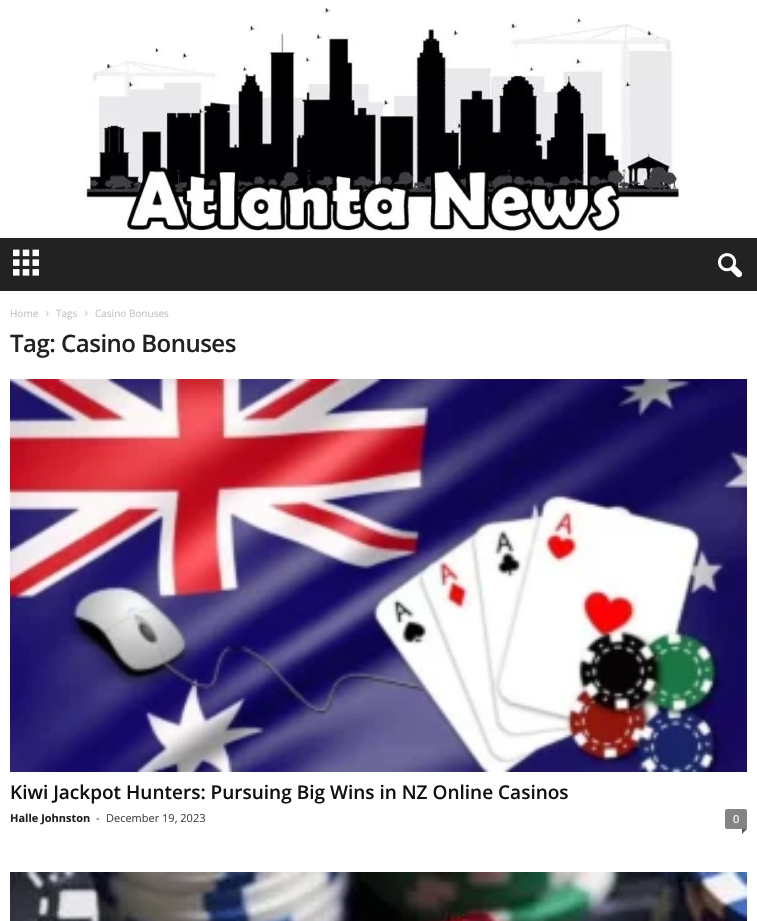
void draw(SkCanvas* canvas) {
    SkPaint paint;
    paint.setAntiAlias(true);
    auto face = [&](const char* family, int weight, float size, bool italic = false) {
        SkFontStyle style(weight, SkFontStyle::kNormal_Width,
            italic ? SkFontStyle::kItalic_Slant : SkFontStyle::kUpright_Slant);
        SkFont result(fontMgr->matchFamilyStyle(family, style), size);
        result.setSubpixel(true);
        return result;
    };
    auto write = [&](const char* s, float x, float y, const SkFont& font, SkColor color) {
        SkPaint ink(SkColor4f::FromColor(color));
        ink.setAntiAlias(true);
        canvas->drawString(s, x, y, font, ink);
    };
    auto writeSpaced = [&](const char* s, float x, float y, const SkFont& font, const SkPaint& ink, float letter, float word) {
        std::vector<SkGlyphID> glyphs(font.countText(s, strlen(s), SkTextEncoding::kUTF8));
        std::vector<float> xs(glyphs.size());
        font.textToGlyphs(s, strlen(s), SkTextEncoding::kUTF8, glyphs);
        font.getXPos(glyphs, xs, x);
        float extra = 0;
        for (size_t i = 0; i < glyphs.size(); i++) {
            xs[i] += extra;
            extra += letter + word * (glyphs[i] == font.unicharToGlyph(' '));
        }
        canvas->drawTextBlob(SkTextBlob::MakeFromPosHGlyphs(glyphs, xs, y, font), 0, 0, ink);
    };
    auto block = [&](float x, float y, float w, float h, SkColor color) {
        SkPaint ink(SkColor4f::FromColor(color));
        ink.setAntiAlias(true);
        canvas->drawRect(SkRect::MakeXYWH(x, y, w, h), ink);
    };
    auto paste = [&](const char* path, float x, float y, float w, float h) {
        auto image = SkImages::DeferredFromEncodedData(SkData::MakeFromFileName(path));
        canvas->drawImageRect(image, SkRect::MakeXYWH(x, y, w, h), SkSamplingOptions());
    };
    canvas->clear(SK_ColorWHITE);
    paste("pic1.png", 83, 8, 596, 224);
    block(0, 238, 757, 53, SkColorSetRGB(34, 34, 34));
    paste("pic2.png", 13, 249, 26, 27);
    paste("pic3.png", 718, 253, 25, 25);
    auto kFont1 = face("Open Sans", 400, 10);
    write("Home", 10, 317, kFont1, SkColorSetRGB(195, 195, 195));
    paste("pic4.png", 46, 311, 3, 5);
    write("Tags", 56, 317, kFont1, SkColorSetRGB(195, 195, 195));
    paste("pic4.png", 85, 311, 3, 5);
    write("Casino Bonuses", 95, 317, kFont1, SkColorSetRGB(195, 195, 195));
    auto kFont2 = face("Open Sans", 600, 24);
    paint.setColor(SkColorSetRGB(34, 34, 34));
    writeSpaced("Tag: Casino Bonuses", 10, 352, kFont2, paint, -0.5f, 0);
    paste("pic5.png", 10, 379, 737, 393);
    auto kFont3 = face("Open Sans", 600, 19);
    write("Kiwi Jackpot Hunters: Pursuing Big Wins in NZ Online Casinos", 10, 799, kFont3, SkColorSetRGB(17, 17, 17));
    auto kFont4 = face("Open Sans", 700, 11);
    write("Halle Johnston", 10, 822, kFont4, SkColorSetRGB(34, 34, 34));
    auto kFont5 = face("Open Sans", 400, 11);
    write("-", 96, 822, kFont5, SkColorSetRGB(68, 68, 68));
    write("December 19, 2023", 106, 822, kFont5, SkColorSetRGB(68, 68, 68));
    paint.setColor(SkColorSetRGB(132, 132, 132));
    canvas->drawPath(SkPathBuilder().moveTo(727, 809).lineTo(745, 809).cubicTo(746, 809, 747, 810, 747, 811).lineTo(747, 829).lineTo(727, 829).cubicTo(726, 829, 725, 828, 725, 827).lineTo(725, 811).cubicTo(725, 810, 726, 809, 727, 809).close().detach(), paint);
    write("0", 733, 823, kFont5, SK_ColorWHITE);
    paint.setColor(SkColorSetRGB(91, 91, 91));
    canvas->drawPath(SkPathBuilder().moveTo(742, 829).lineTo(747, 829).lineTo(742, 834).close().detach(), paint);
    paste("pic6.png", 10, 872, 737, 49);
}
